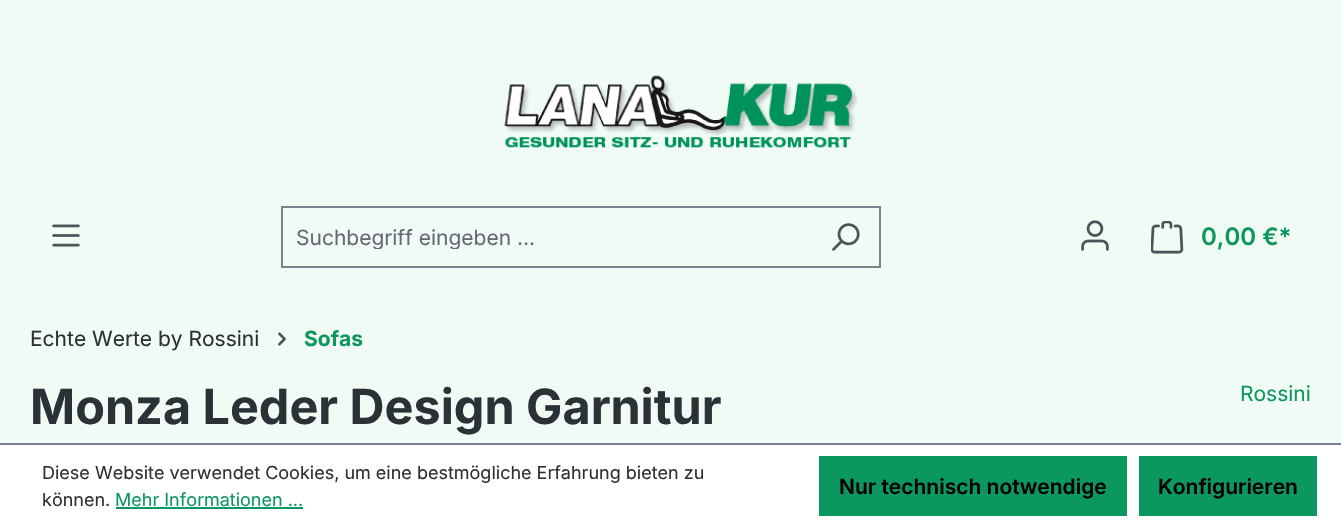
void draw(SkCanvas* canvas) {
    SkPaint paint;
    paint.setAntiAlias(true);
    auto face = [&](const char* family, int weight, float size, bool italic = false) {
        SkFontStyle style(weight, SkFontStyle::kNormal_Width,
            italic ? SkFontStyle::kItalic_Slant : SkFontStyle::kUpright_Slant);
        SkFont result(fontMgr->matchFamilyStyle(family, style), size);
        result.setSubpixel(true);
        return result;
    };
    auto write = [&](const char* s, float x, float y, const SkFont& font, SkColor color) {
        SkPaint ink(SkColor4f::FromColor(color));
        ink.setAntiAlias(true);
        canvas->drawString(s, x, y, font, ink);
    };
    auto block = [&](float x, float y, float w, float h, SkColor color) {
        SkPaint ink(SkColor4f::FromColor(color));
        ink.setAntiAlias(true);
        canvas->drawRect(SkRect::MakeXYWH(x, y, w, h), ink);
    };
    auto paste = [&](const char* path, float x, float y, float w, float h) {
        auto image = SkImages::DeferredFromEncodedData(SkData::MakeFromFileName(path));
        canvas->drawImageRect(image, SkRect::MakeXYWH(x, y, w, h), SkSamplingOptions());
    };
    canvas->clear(SkColorSetRGB(240, 251, 246));
    paste("pic1.png", 504, 75, 354, 73);
    paste("pic2.png", 52, 224, 28, 23);
    block(281, 206, 600, 2, SkColorSetRGB(121, 132, 144));
    block(281, 266, 531, 2, SkColorSetRGB(121, 132, 144));
    block(281, 206, 2, 61, SkColorSetRGB(121, 132, 144));
    canvas->save();
    canvas->clipRect(SkRect::MakeXYWH(296, 224, 502, 25));
    auto kFont1 = face("Inter", 400, 21);
    write("Suchbegriff eingeben ...", 296, 245, kFont1, SkColorSetRGB(102, 105, 119));
    canvas->restore();
    block(879, 206, 2, 61, SkColorSetRGB(121, 132, 144));
    block(810, 266, 71, 2, SkColorSetRGB(121, 132, 144));
    paste("pic3.png", 832, 223, 28, 28);
    paste("pic4.png", 1081, 220, 28, 31);
    paste("pic5.png", 1151, 221, 33, 33);
    auto kFont2 = face("Inter", 600, 24);
    write("0,00 €*", 1201, 245, kFont2, SkColorSetRGB(12, 150, 96));
    write("Echte Werte by Rossini", 30, 346, kFont1, SkColorSetRGB(43, 49, 54));
    paste("pic6.png", 278, 332, 8, 14);
    auto kFont3 = face("Inter", 700, 21);
    write("Sofas", 304, 346, kFont3, SkColorSetRGB(12, 150, 96));
    auto kFont4 = face("Inter", 700, 48.5f);
    write("Monza Leder Design Garnitur", 30, 424, kFont4, SkColorSetRGB(43, 49, 54));
    write("Rossini", 1240, 401, kFont1, SkColorSetRGB(12, 150, 96));
    block(0, 445, 1341, 83, SK_ColorWHITE);
    block(0, 443, 1341, 2, SkColorSetRGB(121, 132, 144));
    auto kFont5 = face("Inter", 400, 18);
    write("Diese Website verwendet Cookies, um eine bestmögliche Erfahrung bieten zu", 42, 479, kFont5, SkColorSetRGB(43, 49, 54));
    write("können.", 42, 506, kFont5, SkColorSetRGB(43, 49, 54));
    write("Mehr Informationen ...", 115, 506, kFont5, SkColorSetRGB(12, 150, 96));
    block(116, 507, 187, 2, SkColorSetRGB(12, 150, 96));
    block(819, 456, 308, 60, SkColorSetRGB(12, 150, 96));
    auto kFont6 = face("Inter", 600, 21);
    write("Nur technisch notwendige", 839, 494, kFont6, SK_ColorBLACK);
    block(1139, 456, 178, 60, SkColorSetRGB(12, 150, 96));
    write("Konfigurieren", 1158, 494, kFont6, SK_ColorBLACK);
}
